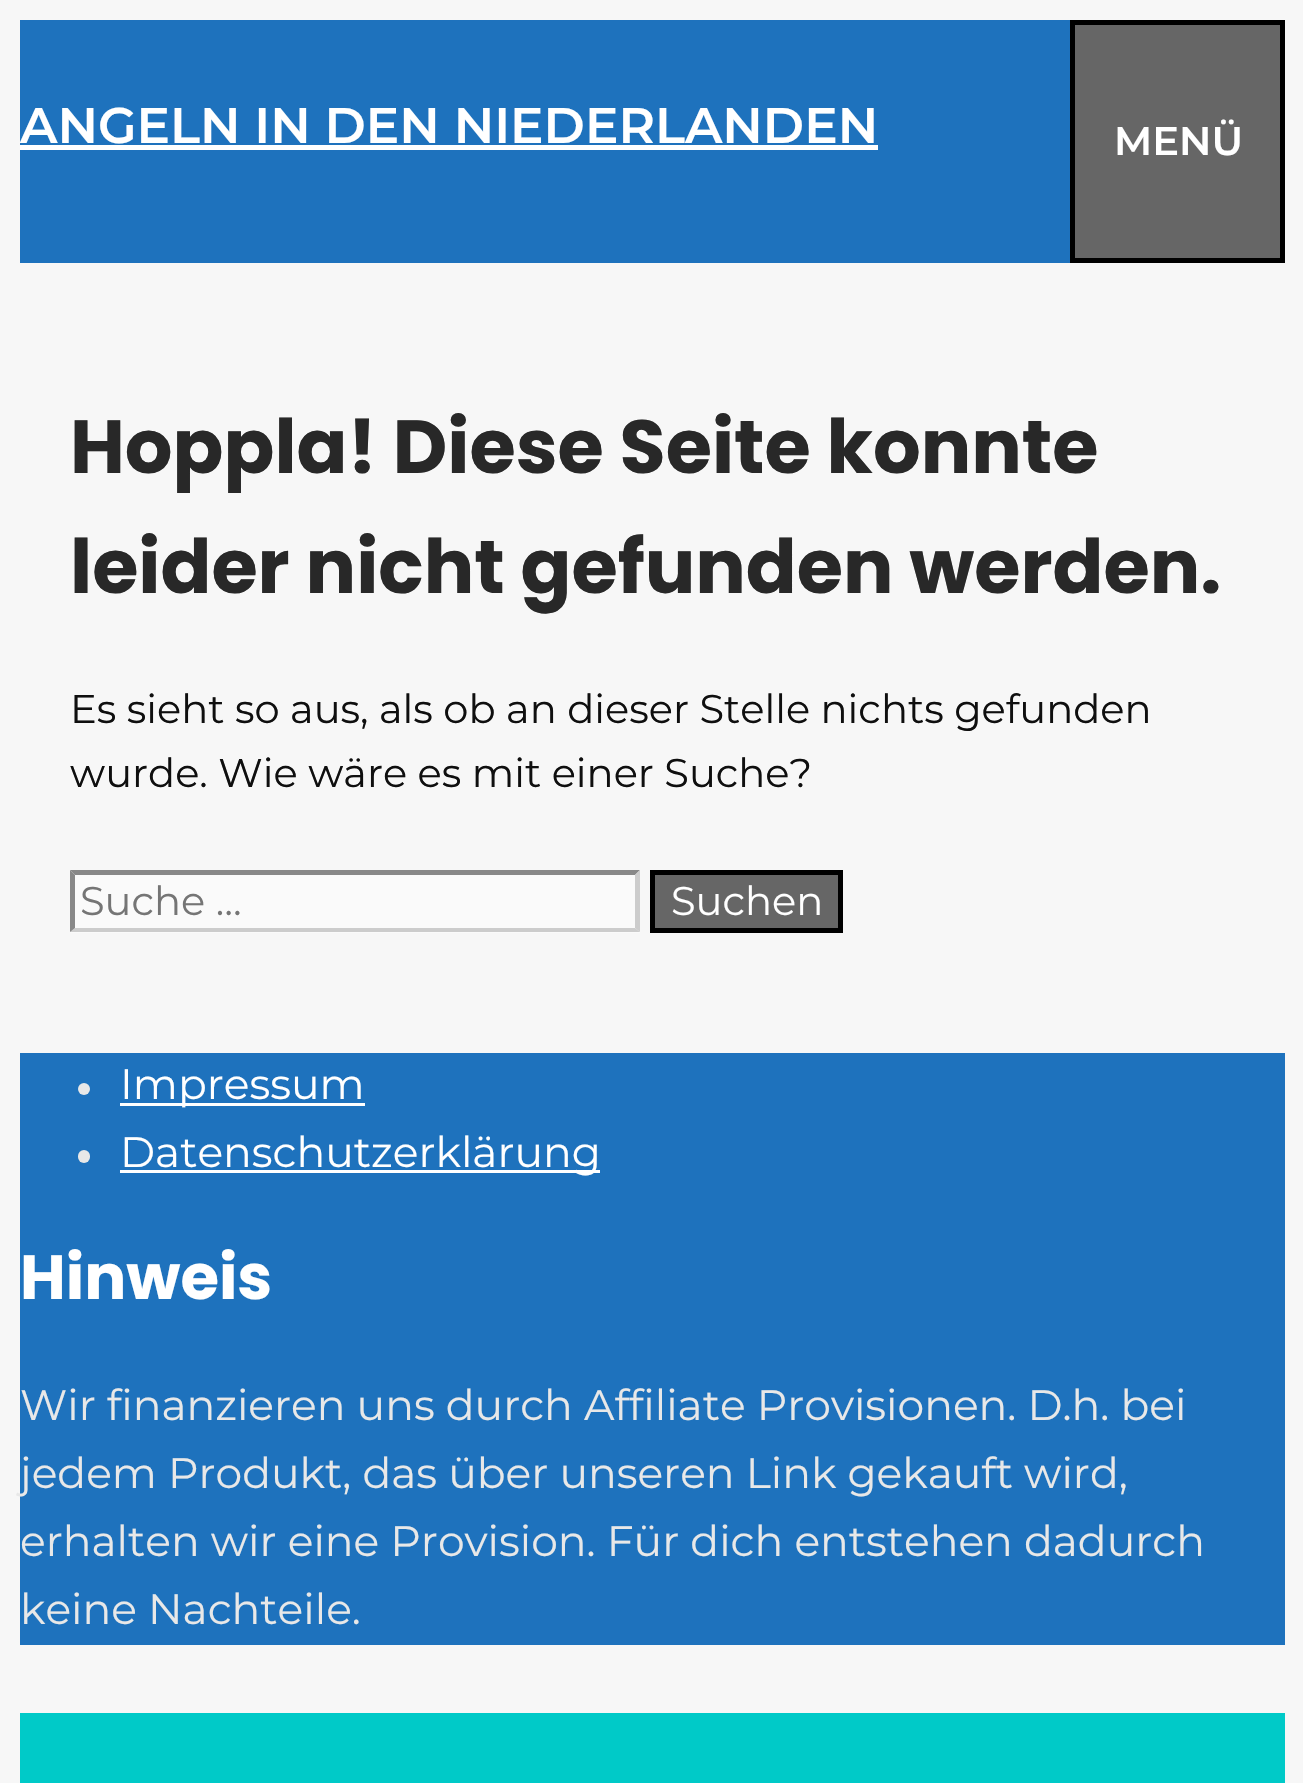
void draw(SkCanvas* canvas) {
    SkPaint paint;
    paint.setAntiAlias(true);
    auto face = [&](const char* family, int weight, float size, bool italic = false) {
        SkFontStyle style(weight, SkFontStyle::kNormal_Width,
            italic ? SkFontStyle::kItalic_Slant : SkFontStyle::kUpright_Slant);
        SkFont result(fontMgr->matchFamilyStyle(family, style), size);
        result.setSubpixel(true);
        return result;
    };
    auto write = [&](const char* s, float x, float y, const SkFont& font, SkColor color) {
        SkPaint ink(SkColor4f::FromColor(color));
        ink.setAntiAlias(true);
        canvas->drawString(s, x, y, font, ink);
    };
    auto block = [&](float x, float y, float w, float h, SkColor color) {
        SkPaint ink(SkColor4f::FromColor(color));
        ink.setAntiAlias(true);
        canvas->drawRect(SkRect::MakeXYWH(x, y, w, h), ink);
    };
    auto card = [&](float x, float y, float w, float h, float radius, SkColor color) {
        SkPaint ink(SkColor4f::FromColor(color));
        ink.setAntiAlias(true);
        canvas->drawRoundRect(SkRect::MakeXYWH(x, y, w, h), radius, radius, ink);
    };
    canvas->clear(SkColorSetRGB(247, 247, 247));
    block(20, 20, 1050, 243, SkColorSetRGB(30, 114, 189));
    auto kFont1 = face("Montserrat", 600, 50);
    write("ANGELN IN DEN NIEDERLANDEN", 20, 143, kFont1, SK_ColorWHITE);
    block(20, 145, 858, 5, SK_ColorWHITE);
    paint.setColor(SkColorSetRGB(102, 102, 102));
    canvas->drawRect(SkRect::MakeXYWH(1072.5f, 22.5f, 210, 238), paint);
    paint.setStyle(SkPaint::kStroke_Style);
    paint.setStrokeWidth(5);
    paint.setColor(SK_ColorBLACK);
    canvas->drawRect(SkRect::MakeXYWH(1072.5f, 22.5f, 210, 238), paint);
    auto kFont2 = face("Montserrat", 600, 40);
    write("MENÜ", 1114, 155, kFont2, SK_ColorWHITE);
    auto kFont3 = face("Poppins", 700, 75);
    write("Hoppla! Diese Seite konnte", 70, 473, kFont3, SkColorSetRGB(40, 40, 40));
    write("leider nicht gefunden werden.", 70, 593, kFont3, SkColorSetRGB(40, 40, 40));
    auto kFont4 = face("Montserrat", 400, 40);
    write("Es sieht so aus, als ob an dieser Stelle nichts gefunden", 70, 723, kFont4, SkColorSetRGB(15, 15, 15));
    write("wurde. Wie wäre es mit einer Suche?", 70, 787, kFont4, SkColorSetRGB(15, 15, 15));
    block(70, 870, 570, 63, SkColorSetRGB(250, 250, 250));
    paint.setStyle(SkPaint::kFill_Style);
    paint.setColor(SkColorSetRGB(136, 136, 136));
    canvas->drawPath(SkPathBuilder().moveTo(70, 870).lineTo(640, 870).lineTo(635, 875).lineTo(75, 875).close().detach(), paint);
    paint.setColor(SkColorSetRGB(204, 204, 204));
    canvas->drawPath(SkPathBuilder().moveTo(640, 870).lineTo(640, 932).lineTo(635, 928).lineTo(635, 875).close().detach(), paint);
    canvas->drawPath(SkPathBuilder().moveTo(640, 932).lineTo(70, 932).lineTo(75, 928).lineTo(635, 928).close().detach(), paint);
    paint.setColor(SkColorSetRGB(136, 136, 136));
    canvas->drawPath(SkPathBuilder().moveTo(70, 932).lineTo(70, 870).lineTo(75, 875).lineTo(75, 928).close().detach(), paint);
    write("Suche …", 80, 915, kFont4, SkColorSetRGB(117, 117, 117));
    paint.setColor(SkColorSetRGB(102, 102, 102));
    canvas->drawRect(SkRect::MakeXYWH(652.5f, 872.5f, 188, 58), paint);
    paint.setStyle(SkPaint::kStroke_Style);
    paint.setColor(SK_ColorBLACK);
    canvas->drawRect(SkRect::MakeXYWH(652.5f, 872.5f, 188, 58), paint);
    write("Suchen", 671, 915, kFont4, SK_ColorWHITE);
    block(20, 1053, 1265, 592, SkColorSetRGB(30, 114, 189));
    paint.setStyle(SkPaint::kFill_Style);
    paint.setColor(SkColorSetRGB(232, 232, 232));
    canvas->drawCircle(84, 1089, 6, paint);
    block(120, 1103, 245, 3, SK_ColorWHITE);
    auto kFont5 = face("Montserrat", 400, 42.5f);
    write("Impressum", 120, 1099, kFont5, SK_ColorWHITE);
    card(78, 1150, 12, 13, 6, SkColorSetRGB(232, 232, 232));
    block(120, 1170, 480, 3, SK_ColorWHITE);
    write("Datenschutzerklärung", 120, 1167, kFont5, SK_ColorWHITE);
    auto kFont6 = face("Poppins", 700, 62.5f);
    write("Hinweis", 20, 1299, kFont6, SK_ColorWHITE);
    write("Wir finanzieren uns durch Affiliate Provisionen. D.h. bei", 20, 1420, kFont5, SkColorSetRGB(232, 232, 232));
    write("jedem Produkt, das über unseren Link gekauft wird,", 20, 1488, kFont5, SkColorSetRGB(232, 232, 232));
    write("erhalten wir eine Provision. Für dich entstehen dadurch", 20, 1556, kFont5, SkColorSetRGB(232, 232, 232));
    write("keine Nachteile.", 20, 1624, kFont5, SkColorSetRGB(232, 232, 232));
    block(20, 1713, 1265, 70, SkColorSetRGB(0, 202, 200));
}
